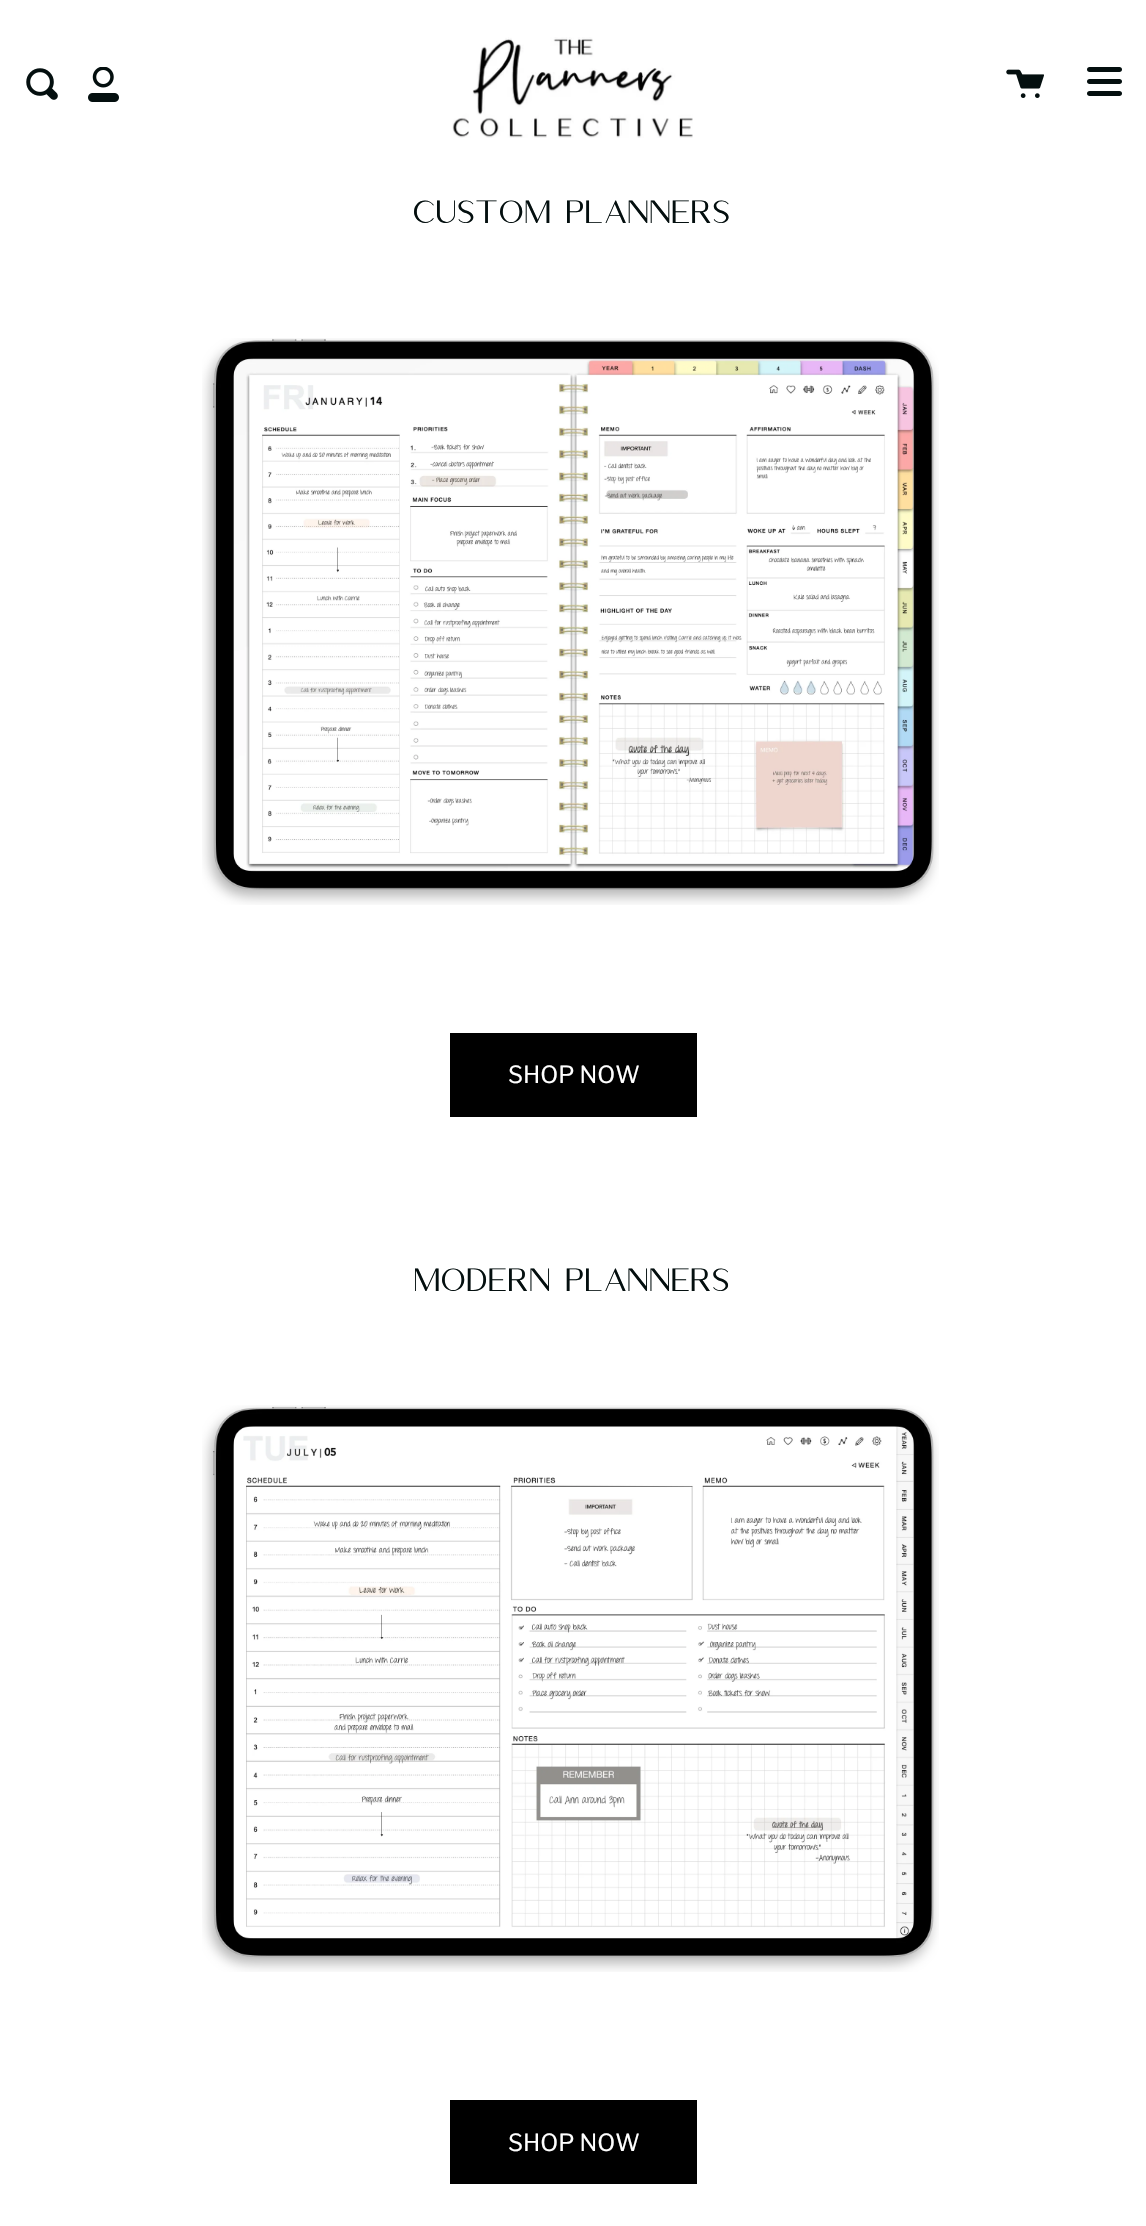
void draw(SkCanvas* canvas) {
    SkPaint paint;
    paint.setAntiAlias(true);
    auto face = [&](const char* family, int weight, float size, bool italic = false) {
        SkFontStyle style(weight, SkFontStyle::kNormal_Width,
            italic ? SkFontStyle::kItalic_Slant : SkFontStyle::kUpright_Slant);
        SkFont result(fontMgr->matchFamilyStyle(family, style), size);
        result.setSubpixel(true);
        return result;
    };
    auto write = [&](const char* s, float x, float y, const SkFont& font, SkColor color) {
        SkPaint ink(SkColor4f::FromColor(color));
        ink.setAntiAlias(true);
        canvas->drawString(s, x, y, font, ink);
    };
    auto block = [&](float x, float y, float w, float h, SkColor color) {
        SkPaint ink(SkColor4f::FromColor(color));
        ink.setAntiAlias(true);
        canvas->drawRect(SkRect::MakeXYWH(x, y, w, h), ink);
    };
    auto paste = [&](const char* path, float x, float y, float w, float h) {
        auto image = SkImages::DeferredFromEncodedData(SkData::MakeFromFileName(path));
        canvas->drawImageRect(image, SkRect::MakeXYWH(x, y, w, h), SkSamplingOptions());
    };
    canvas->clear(SK_ColorWHITE);
    paste("pic1.png", 452, 37, 241, 101);
    paste("pic2.png", 26, 68, 32, 32);
    paste("pic3.png", 88, 67, 31, 35);
    paste("pic4.png", 1006, 69, 38, 29);
    paint.setColor(SkColorSetRGB(4, 15, 15));
    canvas->drawPath(SkPathBuilder().moveTo(1089.5f, 67).lineTo(1117, 67).lineTo(1117, 72).lineTo(1089.5f, 72).cubicTo(1088, 72, 1087, 71, 1087, 69.5f).cubicTo(1087, 68, 1088, 67, 1089.5f, 67).close().detach(), paint);
    canvas->drawPath(SkPathBuilder().moveTo(1092, 67).lineTo(1119.5f, 67).cubicTo(1121, 67, 1122, 68, 1122, 69.5f).cubicTo(1122, 71, 1121, 72, 1119.5f, 72).lineTo(1092, 72).close().detach(), paint);
    canvas->drawPath(SkPathBuilder().moveTo(1089.5f, 79).lineTo(1117, 79).lineTo(1117, 84).lineTo(1089.5f, 84).cubicTo(1088, 84, 1087, 83, 1087, 81.5f).cubicTo(1087, 80, 1088, 79, 1089.5f, 79).close().detach(), paint);
    canvas->drawPath(SkPathBuilder().moveTo(1092, 79).lineTo(1119.5f, 79).cubicTo(1121, 79, 1122, 80, 1122, 81.5f).cubicTo(1122, 83, 1121, 84, 1119.5f, 84).lineTo(1092, 84).close().detach(), paint);
    canvas->drawPath(SkPathBuilder().moveTo(1089.5f, 91).lineTo(1117, 91).lineTo(1117, 96).lineTo(1089.5f, 96).cubicTo(1088, 96, 1087, 95, 1087, 93.5f).cubicTo(1087, 92, 1088, 91, 1089.5f, 91).close().detach(), paint);
    canvas->drawPath(SkPathBuilder().moveTo(1092, 91).lineTo(1119.5f, 91).cubicTo(1121, 91, 1122, 92, 1122, 93.5f).cubicTo(1122, 95, 1121, 96, 1119.5f, 96).lineTo(1092, 96).close().detach(), paint);
    auto kFont1 = face("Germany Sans", 400, 30.25f);
    write("CUSTOM PLANNERS", 414, 223, kFont1, SkColorSetRGB(4, 15, 15));
    paste("pic5.png", 202, 338, 737, 567);
    block(450, 1033, 247, 84, SK_ColorBLACK);
    auto kFont2 = face("libre franklin", 400, 23.5f);
    write("SHOP NOW", 508, 1083, kFont2, SK_ColorWHITE);
    write("MODERN PLANNERS", 415, 1291, kFont1, SkColorSetRGB(4, 15, 15));
    paste("pic6.png", 202, 1405, 737, 567);
    block(450, 2100, 247, 84, SK_ColorBLACK);
    write("SHOP NOW", 508, 2151, kFont2, SK_ColorWHITE);
}
